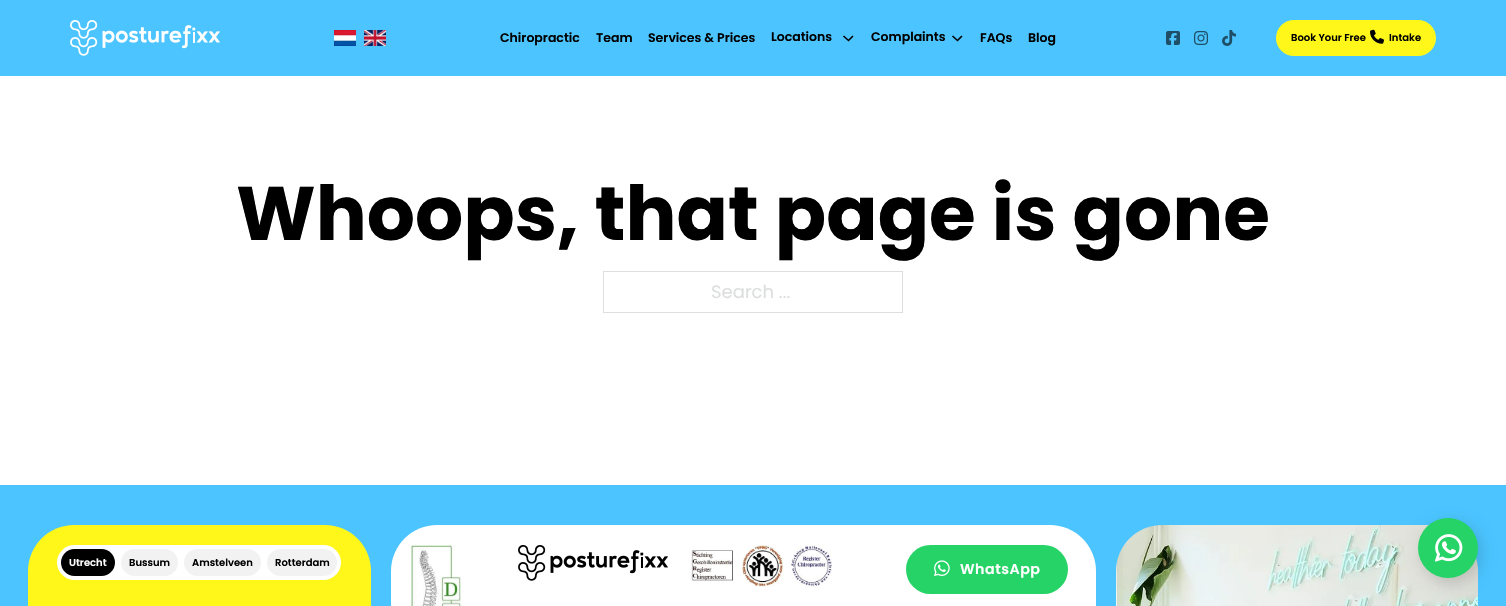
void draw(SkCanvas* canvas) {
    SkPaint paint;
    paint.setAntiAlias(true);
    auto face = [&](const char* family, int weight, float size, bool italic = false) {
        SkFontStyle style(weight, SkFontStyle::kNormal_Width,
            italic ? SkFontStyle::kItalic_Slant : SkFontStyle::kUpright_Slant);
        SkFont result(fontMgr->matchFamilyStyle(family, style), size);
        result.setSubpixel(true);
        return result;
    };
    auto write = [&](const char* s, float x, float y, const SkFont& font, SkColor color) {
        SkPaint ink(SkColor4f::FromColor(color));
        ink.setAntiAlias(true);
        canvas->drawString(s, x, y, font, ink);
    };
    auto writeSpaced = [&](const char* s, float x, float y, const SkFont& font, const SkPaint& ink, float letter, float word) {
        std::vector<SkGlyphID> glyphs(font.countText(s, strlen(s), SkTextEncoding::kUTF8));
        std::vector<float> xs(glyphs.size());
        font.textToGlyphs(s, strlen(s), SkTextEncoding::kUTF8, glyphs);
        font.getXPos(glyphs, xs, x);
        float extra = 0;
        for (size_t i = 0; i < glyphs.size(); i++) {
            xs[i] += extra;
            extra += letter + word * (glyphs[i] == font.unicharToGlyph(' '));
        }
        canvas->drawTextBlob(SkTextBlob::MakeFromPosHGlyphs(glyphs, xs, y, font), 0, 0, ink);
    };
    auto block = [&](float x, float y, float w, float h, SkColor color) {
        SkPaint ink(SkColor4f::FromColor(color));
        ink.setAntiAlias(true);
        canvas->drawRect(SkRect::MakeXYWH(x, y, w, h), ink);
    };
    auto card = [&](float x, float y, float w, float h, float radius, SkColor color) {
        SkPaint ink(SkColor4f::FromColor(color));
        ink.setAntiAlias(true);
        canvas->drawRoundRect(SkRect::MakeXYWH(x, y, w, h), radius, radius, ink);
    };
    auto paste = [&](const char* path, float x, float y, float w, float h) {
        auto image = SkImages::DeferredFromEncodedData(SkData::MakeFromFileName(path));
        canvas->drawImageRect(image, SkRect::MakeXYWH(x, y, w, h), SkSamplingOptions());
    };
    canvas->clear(SK_ColorWHITE);
    block(0, 0, 1506, 76, SkColorSetRGB(75, 196, 255));
    paste("pic1.png", 70, 20, 150, 36);
    paste("pic2.png", 334, 30, 22, 16);
    paste("pic3.png", 364, 30, 22, 16);
    auto kFont1 = face("Poppins", 600, 12.5f);
    write("Chiropractic", 500, 42, kFont1, SK_ColorBLACK);
    write("Team", 596, 42, kFont1, SK_ColorBLACK);
    write("Services & Prices", 648, 42, kFont1, SK_ColorBLACK);
    write("Locations", 771, 41, kFont1, SK_ColorBLACK);
    paint.setStyle(SkPaint::kStroke_Style);
    paint.setStrokeWidth(1.6f);
    paint.setColor(SK_ColorBLACK);
    canvas->drawPath(SkPathBuilder().moveTo(843.5f, 36).lineTo(848.5f, 40.5f).lineTo(853, 36).detach(), paint);
    write("Complaints", 871, 41, kFont1, SK_ColorBLACK);
    canvas->drawPath(SkPathBuilder().moveTo(952.5f, 36).lineTo(957.5f, 40.5f).lineTo(962, 36).detach(), paint);
    write("FAQs", 980, 42, kFont1, SK_ColorBLACK);
    write("Blog", 1028, 42, kFont1, SK_ColorBLACK);
    paste("pic4.png", 1166, 31, 14, 14);
    paste("pic5.png", 1194, 31, 14, 14);
    paste("pic6.png", 1222, 30, 14, 16);
    card(1276, 20, 160, 36, 18, SkColorSetRGB(255, 247, 25));
    auto kFont2 = face("Poppins", 600, 10);
    write("Book Your Free", 1291, 41, kFont2, SK_ColorBLACK);
    paste("pic7.png", 1370, 29, 14, 15);
    write("Intake", 1389, 41, kFont2, SK_ColorBLACK);
    auto kFont3 = face("Poppins", 700, 75.75f);
    write("Whoops, that page is gone", 236, 240, kFont3, SK_ColorBLACK);
    paint.setStrokeWidth(1);
    paint.setColor(SkColorSetRGB(221, 222, 223));
    canvas->drawRect(SkRect::MakeXYWH(603.5f, 271.5f, 299, 41), paint);
    auto kFont4 = face("Poppins", 400, 18);
    write("Search ...", 711, 298, kFont4, SkColorSetRGB(221, 222, 223));
    block(0, 485, 1506, 121, SkColorSetRGB(75, 196, 255));
    card(28, 525, 343, 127, 46, SkColorSetRGB(255, 247, 25));
    card(57, 545, 284, 35, 17.5f, SK_ColorWHITE);
    card(61, 549, 54, 27, 13.5f, SK_ColorBLACK);
    write("Utrecht", 69, 566, kFont2, SK_ColorWHITE);
    card(121, 549, 57, 27, 13.5f, SkColorSetRGB(242, 242, 242));
    write("Bussum", 129, 566, kFont2, SK_ColorBLACK);
    card(184, 549, 77, 27, 13.5f, SkColorSetRGB(242, 242, 242));
    write("Amstelveen", 192, 566, kFont2, SK_ColorBLACK);
    card(267, 549, 70, 27, 13.5f, SkColorSetRGB(242, 242, 242));
    write("Rotterdam", 275, 566, kFont2, SK_ColorBLACK);
    card(391, 525, 705, 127, 46, SK_ColorWHITE);
    paste("pic8.png", 411, 545, 50, 61);
    paste("pic9.png", 518, 545, 150, 36);
    paste("pic10.png", 691, 545, 141, 42);
    card(906, 545, 162, 49, 24.5f, SkColorSetRGB(37, 211, 102));
    paste("pic11.png", 934, 560, 16, 17);
    auto kFont5 = face("Poppins", 600, 14.25f);
    paint.setStyle(SkPaint::kFill_Style);
    paint.setColor(SK_ColorWHITE);
    writeSpaced("WhatsApp", 960, 574, kFont5, paint, 0.5f, 0);
    paste("pic12.png", 1116, 525, 362, 81);
    paint.setColor(SkColorSetARGB(38, 0, 0, 0));
    paint.setMaskFilter(SkMaskFilter::MakeBlur(kNormal_SkBlurStyle, 7.5f));
    canvas->drawRoundRect(SkRect::MakeXYWH(1421, 523, 60, 60), 30, 30, paint);
    paint.setMaskFilter(nullptr);
    paint.setColor(SkColorSetRGB(37, 211, 102));
    canvas->drawCircle(1448, 548, 30, paint);
    paste("pic13.png", 1435, 534, 28, 28);
}
